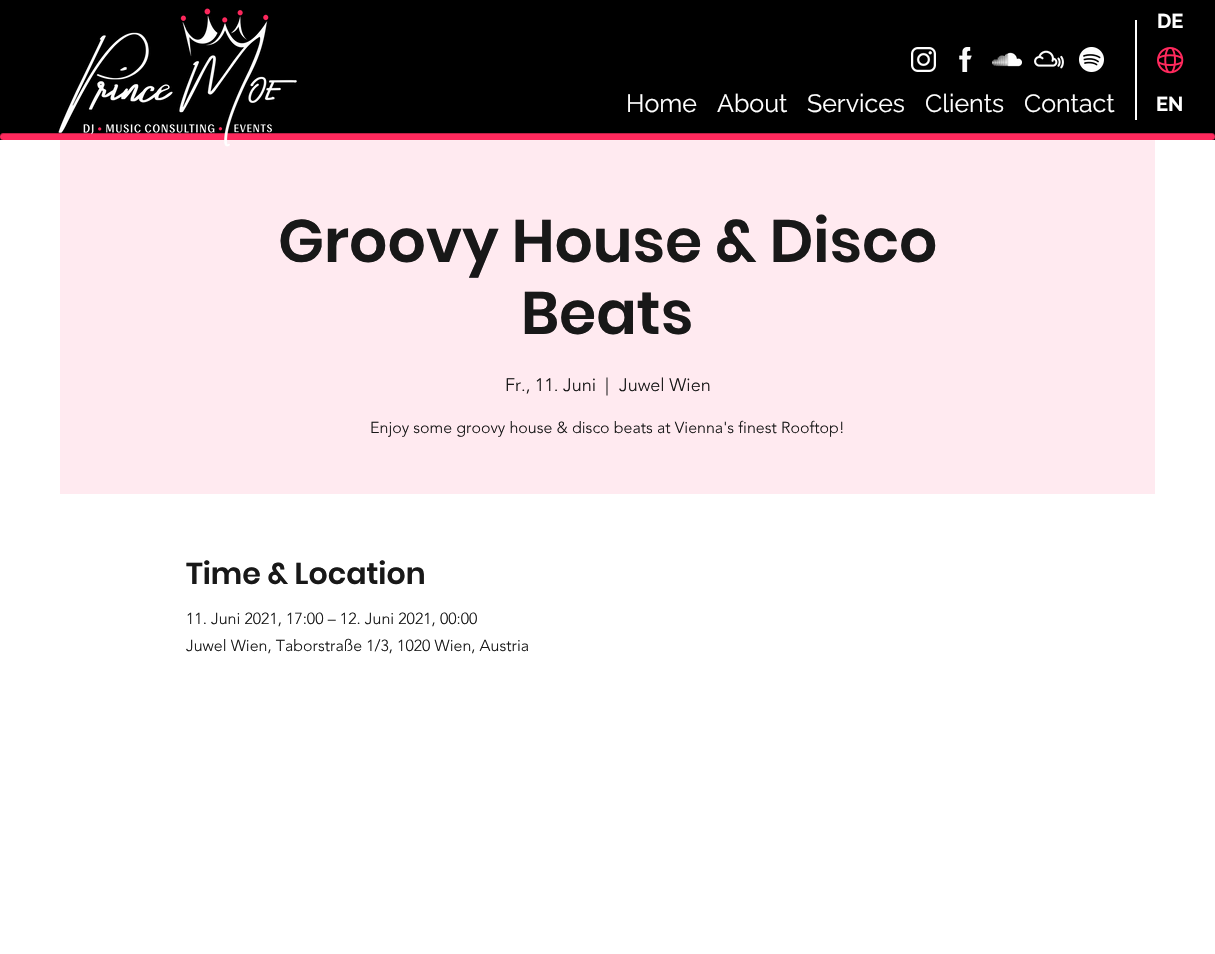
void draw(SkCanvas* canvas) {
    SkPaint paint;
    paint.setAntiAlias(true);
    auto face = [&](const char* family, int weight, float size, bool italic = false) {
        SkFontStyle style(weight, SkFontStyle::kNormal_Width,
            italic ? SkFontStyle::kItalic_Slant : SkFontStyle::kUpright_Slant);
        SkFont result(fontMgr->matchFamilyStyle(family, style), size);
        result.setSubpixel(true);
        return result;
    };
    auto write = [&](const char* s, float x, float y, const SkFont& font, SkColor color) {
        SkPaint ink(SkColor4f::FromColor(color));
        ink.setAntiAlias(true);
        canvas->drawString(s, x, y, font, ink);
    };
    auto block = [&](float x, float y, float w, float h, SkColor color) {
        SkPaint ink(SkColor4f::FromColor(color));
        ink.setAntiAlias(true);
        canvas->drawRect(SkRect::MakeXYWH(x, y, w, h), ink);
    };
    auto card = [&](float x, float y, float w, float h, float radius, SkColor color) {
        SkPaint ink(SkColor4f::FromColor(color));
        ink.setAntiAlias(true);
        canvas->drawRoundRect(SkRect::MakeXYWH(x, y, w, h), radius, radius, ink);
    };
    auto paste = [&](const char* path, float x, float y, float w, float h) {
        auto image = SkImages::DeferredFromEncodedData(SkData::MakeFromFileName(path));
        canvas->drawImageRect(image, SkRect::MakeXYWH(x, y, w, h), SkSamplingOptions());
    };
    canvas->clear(SK_ColorWHITE);
    block(0, 0, 1215, 140, SK_ColorBLACK);
    block(60, 140, 1095, 354, SkColorSetRGB(255, 234, 240));
    paint.setColor(SkColorSetARGB(26, 255, 255, 255));
    canvas->drawPath(SkPathBuilder().moveTo(0, 137).lineTo(0, 138).cubicTo(0, 140, 2, 141, 4, 141).lineTo(1212, 141).cubicTo(1213, 141, 1215, 140, 1215, 138).lineTo(1215, 137).cubicTo(1215, 139, 1213, 140, 1212, 140).lineTo(4, 140).cubicTo(2, 140, 0, 139, 0, 137).close().detach(), paint);
    card(0, 133, 1215, 7, 3.5f, SkColorSetRGB(255, 41, 93));
    paint.setColor(SkColorSetARGB(64, 0, 0, 0));
    canvas->drawPath(SkPathBuilder().moveTo(4, 134).lineTo(1212, 134).cubicTo(1214, 134, 1215, 136, 1215, 138).cubicTo(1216, 135, 1214, 133, 1212, 133).lineTo(4, 133).cubicTo(1, 133, -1, 136, 0, 138).cubicTo(0, 136, 1, 134, 4, 134).close().detach(), paint);
    paste("pic1.png", 58, 8, 239, 139);
    paste("pic2.png", 911, 47, 25, 25);
    paste("pic3.png", 959, 47, 13, 25);
    paste("pic4.png", 992, 52, 30, 15);
    paste("pic5.png", 1034, 50, 30, 19);
    paste("pic6.png", 1079, 47, 25, 25);
    block(1135, 20, 2, 100, SK_ColorWHITE);
    auto kFont1 = face("Raleway", 700, 20);
    write("DE", 1157, 28, kFont1, SK_ColorWHITE);
    paste("pic7.png", 1157, 47, 27, 27);
    write("EN", 1156, 111, kFont1, SK_ColorWHITE);
    auto kFont2 = face("Raleway", 400, 25);
    write("Home", 626, 112, kFont2, SK_ColorWHITE);
    write("About", 717, 112, kFont2, SK_ColorWHITE);
    write("Services", 807, 112, kFont2, SK_ColorWHITE);
    write("Clients", 925, 112, kFont2, SK_ColorWHITE);
    write("Contact", 1024, 112, kFont2, SK_ColorWHITE);
    auto kFont3 = face("Poppins", 600, 60);
    write("Groovy House & Disco", 278, 262, kFont3, SkColorSetRGB(24, 24, 24));
    write("Beats", 521, 334, kFont3, SkColorSetRGB(24, 24, 24));
    auto kFont4 = face("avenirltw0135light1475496", 300, 18);
    write("Fr., 11. Juni", 505, 391, kFont4, SkColorSetRGB(24, 24, 24));
    write("|", 605, 391, kFont4, SkColorSetRGB(24, 24, 24));
    write("Juwel Wien", 619, 391, kFont4, SkColorSetRGB(24, 24, 24));
    auto kFont5 = face("avenirltw0135light1475496", 300, 16);
    write("Enjoy some groovy house & disco beats at Vienna's finest Rooftop!", 370, 433, kFont5, SkColorSetRGB(24, 24, 24));
    auto kFont6 = face("Poppins", 600, 30);
    write("Time & Location", 186, 584, kFont6, SkColorSetRGB(24, 24, 24));
    write("11. Juni 2021, 17:00 – 12. Juni 2021, 00:00", 186, 624, kFont5, SkColorSetRGB(24, 24, 24));
    write("Juwel Wien, Taborstraße 1/3, 1020 Wien, Austria", 186, 651, kFont5, SkColorSetRGB(24, 24, 24));
}
